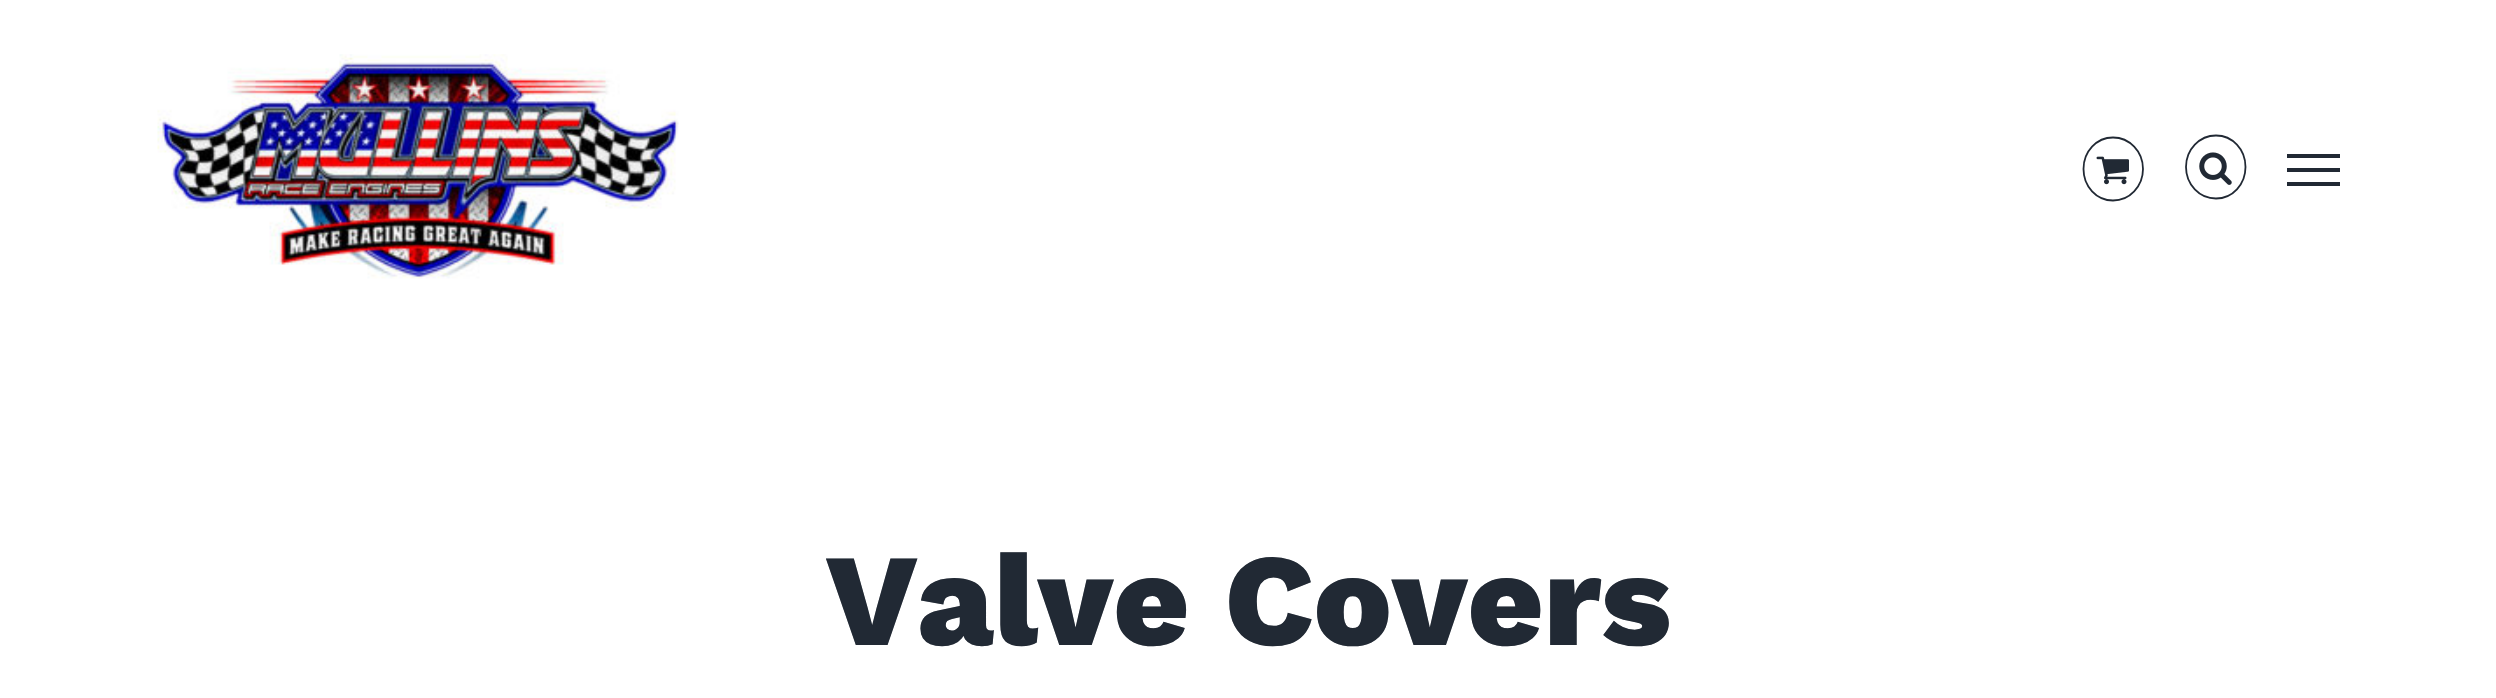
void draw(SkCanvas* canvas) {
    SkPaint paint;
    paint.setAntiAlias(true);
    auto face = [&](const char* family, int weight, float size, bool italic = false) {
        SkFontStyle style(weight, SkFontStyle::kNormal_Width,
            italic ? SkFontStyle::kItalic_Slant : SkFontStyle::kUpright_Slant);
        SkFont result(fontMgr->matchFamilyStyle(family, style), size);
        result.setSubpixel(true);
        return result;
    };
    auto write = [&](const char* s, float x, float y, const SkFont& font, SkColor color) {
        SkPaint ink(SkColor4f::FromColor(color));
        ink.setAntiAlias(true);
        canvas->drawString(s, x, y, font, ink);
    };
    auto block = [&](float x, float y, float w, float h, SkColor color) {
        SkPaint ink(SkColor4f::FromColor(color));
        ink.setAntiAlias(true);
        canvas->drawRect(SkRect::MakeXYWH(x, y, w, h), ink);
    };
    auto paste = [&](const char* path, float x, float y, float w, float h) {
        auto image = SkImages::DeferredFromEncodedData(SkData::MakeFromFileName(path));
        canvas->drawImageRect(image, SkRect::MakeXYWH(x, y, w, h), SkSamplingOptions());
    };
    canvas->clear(SK_ColorWHITE);
    paste("pic1.png", 157, 54, 522, 225);
    paint.setStyle(SkPaint::kStroke_Style);
    paint.setStrokeWidth(1.8f);
    paint.setColor(SkColorSetRGB(33, 41, 52));
    canvas->drawPath(SkPathBuilder().moveTo(2113, 137.5f).cubicTo(2129.5f, 137.5f, 2143, 151.5f, 2143, 169).cubicTo(2143, 186.5f, 2129.5f, 200.5f, 2113, 200.5f).cubicTo(2096.5f, 200.5f, 2083.5f, 186.5f, 2083.5f, 169).cubicTo(2083.5f, 151.5f, 2096.5f, 137.5f, 2113, 137.5f).close().detach(), paint);
    paste("pic2.png", 2096, 156, 33, 29);
    canvas->drawPath(SkPathBuilder().moveTo(2216, 135.5f).cubicTo(2232.5f, 135.5f, 2245.5f, 149.5f, 2245.5f, 167).cubicTo(2245.5f, 184.5f, 2232.5f, 198.5f, 2216, 198.5f).cubicTo(2199.5f, 198.5f, 2186, 184.5f, 2186, 167).cubicTo(2186, 149.5f, 2199.5f, 135.5f, 2216, 135.5f).close().detach(), paint);
    paste("pic3.png", 2199, 152, 33, 33);
    block(2287, 154, 53, 4, SkColorSetRGB(33, 41, 52));
    block(2287, 168, 53, 4, SkColorSetRGB(33, 41, 52));
    block(2287, 182, 53, 4, SkColorSetRGB(33, 41, 52));
    auto kFont1 = face("Work Sans", 800, 131.25f);
    write("Valve Covers", 826, 645, kFont1, SkColorSetRGB(33, 41, 52));
}
